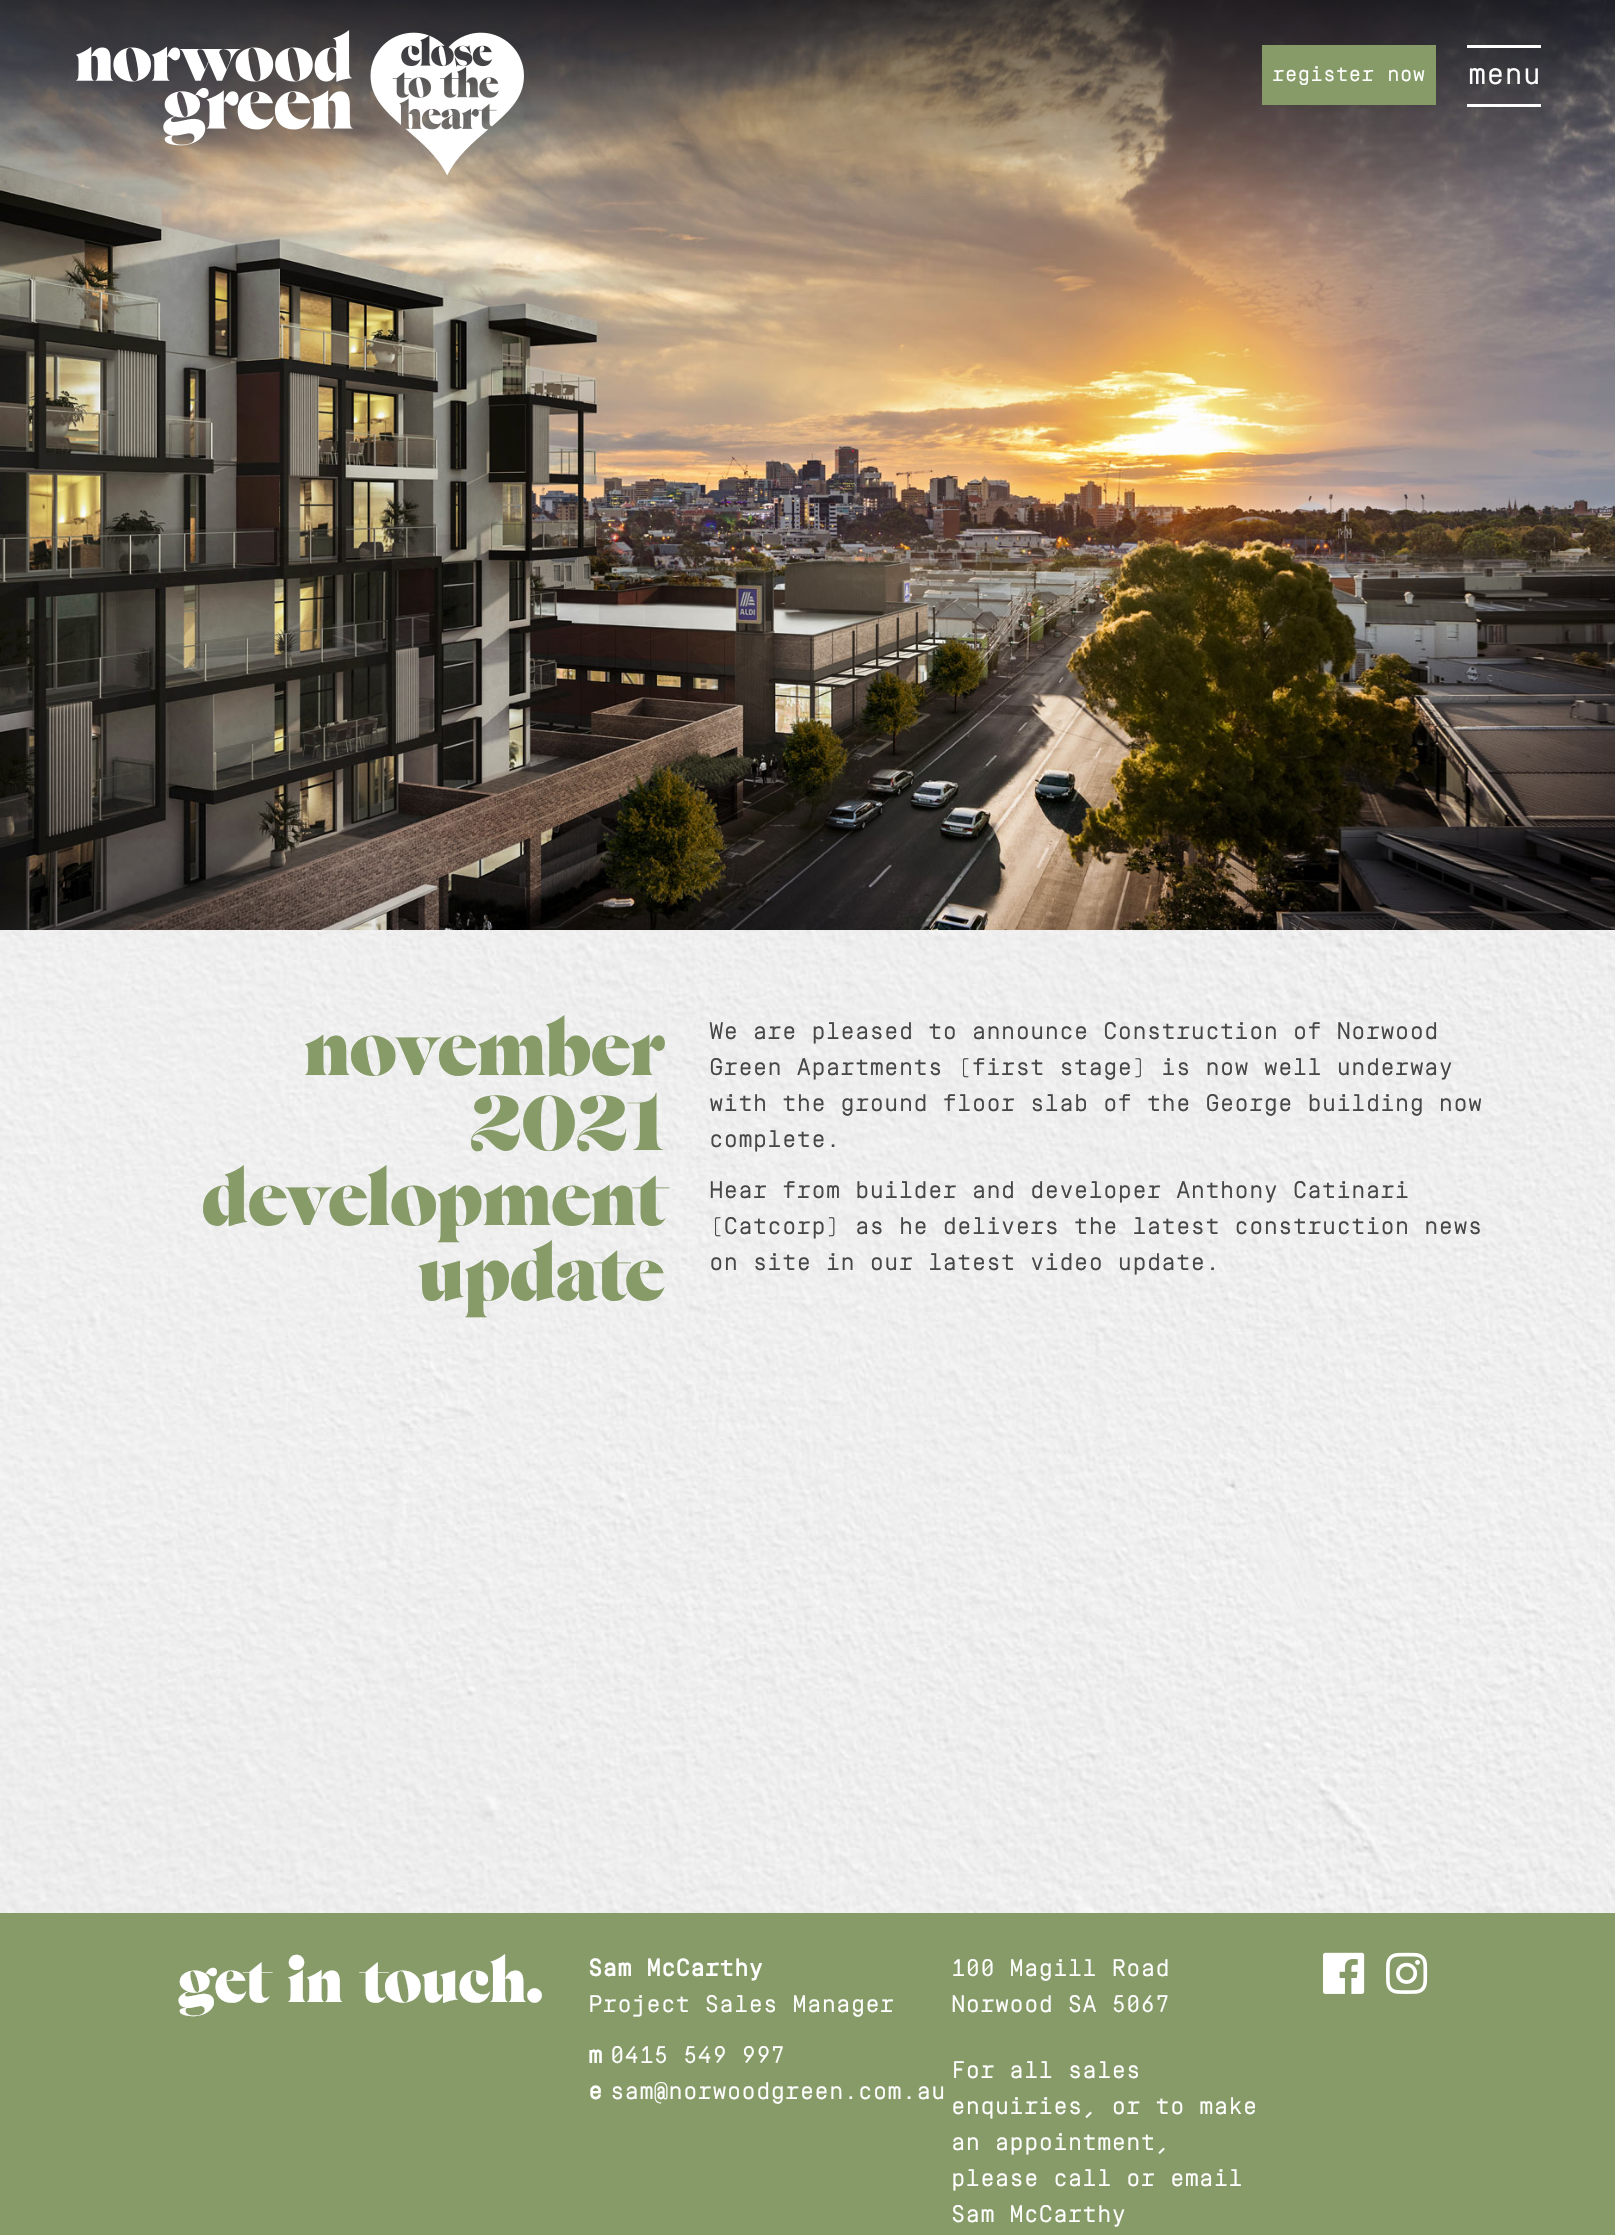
void draw(SkCanvas* canvas) {
    SkPaint paint;
    paint.setAntiAlias(true);
    auto face = [&](const char* family, int weight, float size, bool italic = false) {
        SkFontStyle style(weight, SkFontStyle::kNormal_Width,
            italic ? SkFontStyle::kItalic_Slant : SkFontStyle::kUpright_Slant);
        SkFont result(fontMgr->matchFamilyStyle(family, style), size);
        result.setSubpixel(true);
        return result;
    };
    auto write = [&](const char* s, float x, float y, const SkFont& font, SkColor color) {
        SkPaint ink(SkColor4f::FromColor(color));
        ink.setAntiAlias(true);
        canvas->drawString(s, x, y, font, ink);
    };
    auto writeSpaced = [&](const char* s, float x, float y, const SkFont& font, const SkPaint& ink, float letter, float word) {
        std::vector<SkGlyphID> glyphs(font.countText(s, strlen(s), SkTextEncoding::kUTF8));
        std::vector<float> xs(glyphs.size());
        font.textToGlyphs(s, strlen(s), SkTextEncoding::kUTF8, glyphs);
        font.getXPos(glyphs, xs, x);
        float extra = 0;
        for (size_t i = 0; i < glyphs.size(); i++) {
            xs[i] += extra;
            extra += letter + word * (glyphs[i] == font.unicharToGlyph(' '));
        }
        canvas->drawTextBlob(SkTextBlob::MakeFromPosHGlyphs(glyphs, xs, y, font), 0, 0, ink);
    };
    auto block = [&](float x, float y, float w, float h, SkColor color) {
        SkPaint ink(SkColor4f::FromColor(color));
        ink.setAntiAlias(true);
        canvas->drawRect(SkRect::MakeXYWH(x, y, w, h), ink);
    };
    auto paste = [&](const char* path, float x, float y, float w, float h) {
        auto image = SkImages::DeferredFromEncodedData(SkData::MakeFromFileName(path));
        canvas->drawImageRect(image, SkRect::MakeXYWH(x, y, w, h), SkSamplingOptions());
    };
    canvas->clear(SK_ColorWHITE);
    paste("pic1.png", 0, 930, 1615, 983);
    paste("pic3.png", 0, 0, 1615, 930);
    paste("pic2.png", 76, 30, 448, 146);
    block(1262, 45, 174, 60, SkColorSetRGB(134, 155, 104));
    auto kFont1 = face("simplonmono", 400, 21);
    write("register now", 1272, 81, kFont1, SK_ColorWHITE);
    block(1467, 45, 74, 3, SK_ColorWHITE);
    block(1467, 104, 74, 3, SK_ColorWHITE);
    auto kFont2 = face("simplonmono", 400, 30);
    write("menu", 1468, 84, kFont2, SK_ColorWHITE);
    auto kFont3 = face("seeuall", 900, 75);
    write("november", 304, 1075, kFont3, SkColorSetRGB(134, 155, 104));
    write("2021", 470, 1150, kFont3, SkColorSetRGB(134, 155, 104));
    write("development", 202, 1225, kFont3, SkColorSetRGB(134, 155, 104));
    write("update", 418, 1300, kFont3, SkColorSetRGB(134, 155, 104));
    auto kFont4 = face("simplonmono", 400, 24);
    write("We are pleased to announce Construction of Norwood", 709, 1039, kFont4, SkColorSetRGB(71, 71, 71));
    write("Green Apartments (first stage) is now well underway", 709, 1075, kFont4, SkColorSetRGB(71, 71, 71));
    write("with the ground floor slab of the George building now", 709, 1111, kFont4, SkColorSetRGB(71, 71, 71));
    write("complete.", 709, 1147, kFont4, SkColorSetRGB(71, 71, 71));
    write("Hear from builder and developer Anthony Catinari", 709, 1198, kFont4, SkColorSetRGB(71, 71, 71));
    write("(Catcorp) as he delivers the latest construction news", 709, 1234, kFont4, SkColorSetRGB(71, 71, 71));
    write("on site in our latest video update.", 709, 1270, kFont4, SkColorSetRGB(71, 71, 71));
    block(0, 1913, 1615, 322, SkColorSetRGB(134, 155, 104));
    auto kFont5 = face("seeuall", 900, 60);
    paint.setColor(SK_ColorWHITE);
    writeSpaced("get in touch.", 178, 2002, kFont5, paint, 0, 9);
    auto kFont6 = face("simplonmono", 700, 24);
    write("Sam McCarthy", 588, 1976, kFont6, SK_ColorWHITE);
    write("Project Sales Manager", 588, 2012, kFont4, SK_ColorWHITE);
    write("m", 588, 2063, kFont6, SK_ColorWHITE);
    write("0415 549 997", 610, 2063, kFont4, SK_ColorWHITE);
    write("e", 588, 2099, kFont6, SK_ColorWHITE);
    write("sam@norwoodgreen.com.au", 610, 2099, kFont4, SK_ColorWHITE);
    write("100 Magill Road", 951, 1976, kFont4, SK_ColorWHITE);
    write("Norwood SA 5067", 951, 2012, kFont4, SK_ColorWHITE);
    write("For all sales", 951, 2078, kFont4, SK_ColorWHITE);
    write("enquiries, or to make", 951, 2114, kFont4, SK_ColorWHITE);
    write("an appointment,", 951, 2150, kFont4, SK_ColorWHITE);
    write("please call or email", 951, 2186, kFont4, SK_ColorWHITE);
    write("Sam McCarthy", 951, 2222, kFont4, SK_ColorWHITE);
    paste("pic4.png", 1323, 1952, 42, 42);
    paste("pic5.png", 1386, 1952, 42, 42);
}
